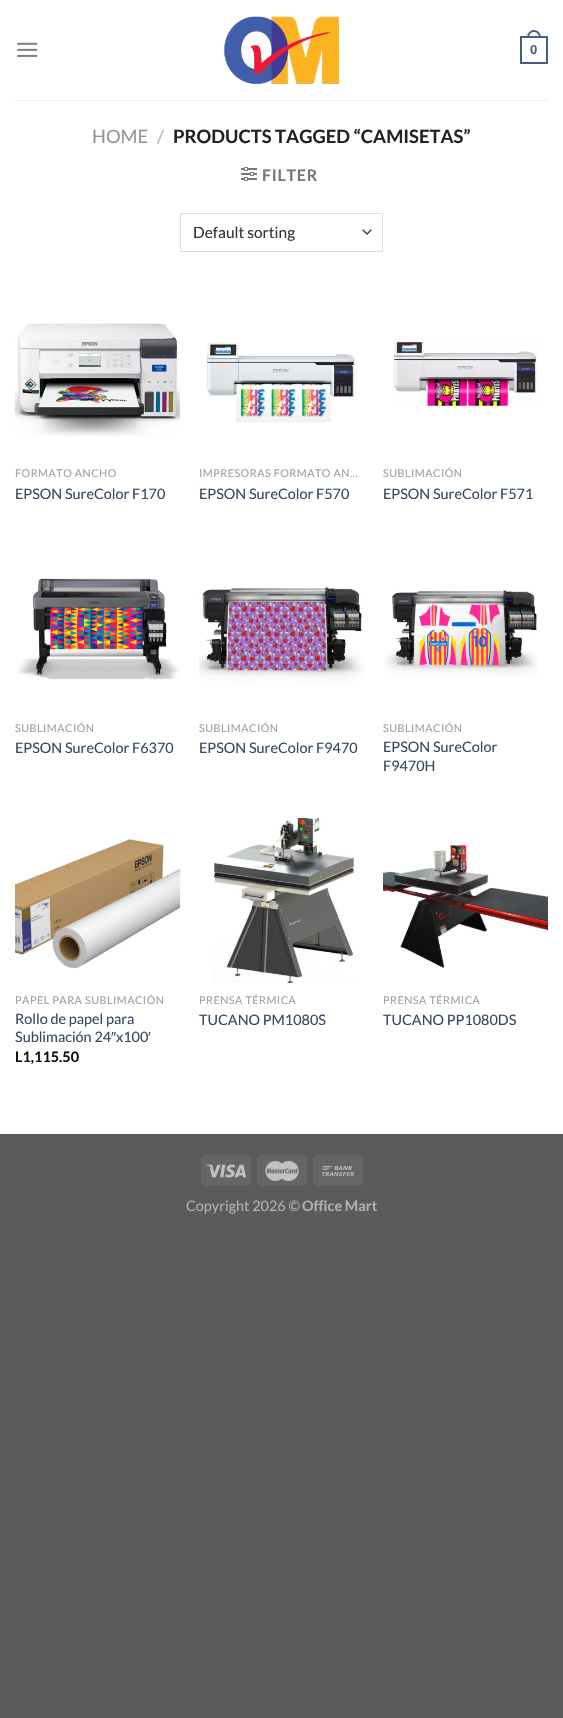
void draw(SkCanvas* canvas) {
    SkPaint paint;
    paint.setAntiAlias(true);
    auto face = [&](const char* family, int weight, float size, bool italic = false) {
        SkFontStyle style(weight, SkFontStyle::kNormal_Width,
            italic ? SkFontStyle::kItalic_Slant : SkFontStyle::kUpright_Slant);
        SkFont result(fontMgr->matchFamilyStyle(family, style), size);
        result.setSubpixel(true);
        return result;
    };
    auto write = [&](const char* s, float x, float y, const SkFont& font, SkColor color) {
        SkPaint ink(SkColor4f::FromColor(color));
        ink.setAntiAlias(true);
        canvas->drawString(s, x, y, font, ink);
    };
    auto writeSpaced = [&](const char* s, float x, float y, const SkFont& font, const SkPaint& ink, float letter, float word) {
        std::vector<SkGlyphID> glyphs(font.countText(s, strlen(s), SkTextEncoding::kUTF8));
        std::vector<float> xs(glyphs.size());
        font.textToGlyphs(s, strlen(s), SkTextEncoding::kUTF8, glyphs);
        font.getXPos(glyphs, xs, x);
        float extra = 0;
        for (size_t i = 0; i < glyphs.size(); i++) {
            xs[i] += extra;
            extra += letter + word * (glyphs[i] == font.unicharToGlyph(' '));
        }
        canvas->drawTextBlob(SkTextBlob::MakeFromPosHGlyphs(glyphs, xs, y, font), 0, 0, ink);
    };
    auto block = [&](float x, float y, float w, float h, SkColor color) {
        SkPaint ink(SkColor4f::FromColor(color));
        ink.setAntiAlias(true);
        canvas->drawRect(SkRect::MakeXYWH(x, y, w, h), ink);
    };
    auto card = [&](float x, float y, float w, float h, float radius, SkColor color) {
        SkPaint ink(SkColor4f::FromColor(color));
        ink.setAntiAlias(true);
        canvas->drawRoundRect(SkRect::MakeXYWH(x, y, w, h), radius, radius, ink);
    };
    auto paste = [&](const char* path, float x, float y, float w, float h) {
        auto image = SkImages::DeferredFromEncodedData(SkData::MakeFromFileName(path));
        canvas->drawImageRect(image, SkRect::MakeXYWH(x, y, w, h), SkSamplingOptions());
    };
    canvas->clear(SkColorSetRGB(91, 91, 91));
    block(0, 0, 563, 1134, SK_ColorWHITE);
    paste("pic1.png", 17, 42, 21, 15);
    paste("pic2.png", 224, 16, 116, 68);
    paint.setStyle(SkPaint::kStroke_Style);
    paint.setStrokeWidth(2);
    paint.setColor(SkColorSetRGB(68, 96, 132));
    canvas->drawRect(SkRect::MakeXYWH(521, 37, 26, 26), paint);
    paint.setStyle(SkPaint::kFill_Style);
    canvas->drawPath(SkPathBuilder(SkPathFillType::kEvenOdd).moveTo(534, 30).cubicTo(538.5f, 30, 541, 34, 541, 38).lineTo(527, 38).cubicTo(527, 34, 529.5f, 30, 534, 30).close().moveTo(534, 32).cubicTo(537.5f, 32, 539, 35, 539, 38).lineTo(529, 38).cubicTo(529, 35, 530.5f, 32, 534, 32).close().detach(), paint);
    auto kFont1 = face("Liberation Sans", 700, 13);
    write("0", 530, 54, kFont1, SkColorSetRGB(68, 96, 132));
    block(15, 100, 533, 1, SkColorSetRGB(241, 241, 241));
    auto kFont2 = face("Lato", 400, 18.4f);
    write("HOME", 92, 143, kFont2, SkColorSetRGB(148, 148, 148));
    write("/", 157, 143, kFont2, SkColorSetRGB(178, 178, 178));
    auto kFont3 = face("Lato", 700, 18.4f);
    write("PRODUCTS TAGGED “CAMISETAS”", 173, 143, kFont3, SkColorSetRGB(34, 34, 34));
    paste("pic3.png", 241, 167, 16, 14);
    auto kFont4 = face("Lato", 700, 16);
    paint.setColor(SkColorSetRGB(119, 119, 119));
    writeSpaced("FILTER", 262, 181, kFont4, paint, 0.75f, 0);
    paint.setStyle(SkPaint::kStroke_Style);
    paint.setStrokeWidth(1.3f);
    paint.setStrokeCap(SkPaint::kRound_Cap);
    paint.setStrokeJoin(SkPaint::kRound_Join);
    paint.setColor(SkColorSetRGB(51, 51, 51));
    canvas->drawPath(SkPathBuilder().moveTo(363, 230).lineTo(367, 234).lineTo(371, 230).detach(), paint);
    paint.setStrokeWidth(1);
    paint.setStrokeCap(SkPaint::kButt_Cap);
    paint.setStrokeJoin(SkPaint::kMiter_Join);
    paint.setColor(SkColorSetRGB(221, 221, 221));
    canvas->drawRect(SkRect::MakeXYWH(180.5f, 213.5f, 202, 38), paint);
    auto kFont5 = face("Lato", 400, 15.5f);
    write("Default sorting", 193, 238, kFont5, SkColorSetRGB(51, 51, 51));
    paste("pic4.png", 15, 323, 165, 114);
    auto kFont6 = face("Lato", 400, 10.75f);
    paint.setStyle(SkPaint::kFill_Style);
    paint.setColor(SkColorSetRGB(160, 160, 160));
    writeSpaced("FORMATO ANCHO", 15, 477, kFont6, paint, 0.5f, 0);
    auto kFont7 = face("Lato", 400, 14.4f);
    write("EPSON SureColor F170", 15, 499, kFont7, SkColorSetRGB(51, 72, 98));
    paste("pic5.png", 204, 342, 153, 81);
    writeSpaced("IMPRESORAS FORMATO AN…", 199, 477, kFont6, paint, 0.5f, 0);
    write("EPSON SureColor F570", 199, 499, kFont7, SkColorSetRGB(51, 72, 98));
    paste("pic6.png", 392, 340, 149, 68);
    writeSpaced("SUBLIMACIÓN", 383, 477, kFont6, paint, 0.5f, 0);
    write("EPSON SureColor F571", 383, 499, kFont7, SkColorSetRGB(51, 72, 98));
    paste("pic7.png", 16, 577, 164, 103);
    writeSpaced("SUBLIMACIÓN", 15, 732, kFont6, paint, 0.5f, 0);
    write("EPSON SureColor F6370", 15, 753, kFont7, SkColorSetRGB(51, 72, 98));
    paste("pic8.png", 199, 586, 165, 96);
    writeSpaced("SUBLIMACIÓN", 199, 732, kFont6, paint, 0.5f, 0);
    write("EPSON SureColor F9470", 199, 753, kFont7, SkColorSetRGB(51, 72, 98));
    paste("pic9.png", 384, 590, 155, 86);
    writeSpaced("SUBLIMACIÓN", 383, 732, kFont6, paint, 0.5f, 0);
    write("EPSON SureColor", 383, 752, kFont7, SkColorSetRGB(51, 72, 98));
    write("F9470H", 383, 771, kFont7, SkColorSetRGB(51, 72, 98));
    paste("pic10.png", 15, 838, 165, 131);
    writeSpaced("PAPEL PARA SUBLIMACIÓN", 15, 1004, kFont6, paint, 0.5f, 0);
    write("Rollo de papel para", 15, 1024, kFont7, SkColorSetRGB(51, 72, 98));
    write("Sublimación 24", 15, 1042, kFont7, SkColorSetRGB(51, 72, 98));
    auto kFont8 = face("Liberation Sans", 400, 14.4f);
    write("″", 111, 1042, kFont8, SkColorSetRGB(51, 72, 98));
    write("x100", 116, 1042, kFont7, SkColorSetRGB(51, 72, 98));
    write("′", 148, 1042, kFont8, SkColorSetRGB(51, 72, 98));
    auto kFont9 = face("Lato", 700, 14.4f);
    write("L1,115.50", 15, 1062, kFont9, SkColorSetRGB(17, 17, 17));
    paste("pic11.png", 213, 818, 144, 165);
    writeSpaced("PRENSA TÉRMICA", 199, 1004, kFont6, paint, 0.5f, 0);
    write("TUCANO PM1080S", 199, 1025, kFont7, SkColorSetRGB(51, 72, 98));
    paste("pic12.png", 383, 844, 165, 124);
    writeSpaced("PRENSA TÉRMICA", 383, 1004, kFont6, paint, 0.5f, 0);
    write("TUCANO PP1080DS", 383, 1025, kFont7, SkColorSetRGB(51, 72, 98));
    card(201, 1155, 50, 31, 5, SkColorSetRGB(101, 101, 101));
    paste("pic13.png", 206, 1164, 40, 14);
    card(257, 1155, 50, 31, 5, SkColorSetRGB(101, 101, 101));
    paste("pic14.png", 265, 1161, 34, 20);
    card(313, 1155, 50, 31, 5, SkColorSetRGB(101, 101, 101));
    paste("pic15.png", 322, 1166, 32, 10);
    write("Copyright 2026 ©", 186, 1211, kFont7, SkColorSetRGB(178, 178, 178));
    write("Office Mart", 302, 1211, kFont9, SkColorSetRGB(178, 178, 178));
}
